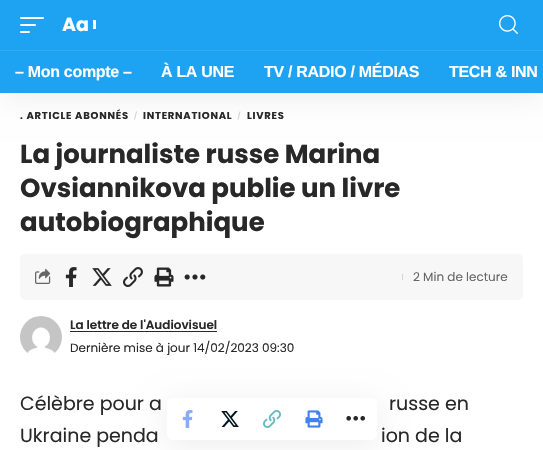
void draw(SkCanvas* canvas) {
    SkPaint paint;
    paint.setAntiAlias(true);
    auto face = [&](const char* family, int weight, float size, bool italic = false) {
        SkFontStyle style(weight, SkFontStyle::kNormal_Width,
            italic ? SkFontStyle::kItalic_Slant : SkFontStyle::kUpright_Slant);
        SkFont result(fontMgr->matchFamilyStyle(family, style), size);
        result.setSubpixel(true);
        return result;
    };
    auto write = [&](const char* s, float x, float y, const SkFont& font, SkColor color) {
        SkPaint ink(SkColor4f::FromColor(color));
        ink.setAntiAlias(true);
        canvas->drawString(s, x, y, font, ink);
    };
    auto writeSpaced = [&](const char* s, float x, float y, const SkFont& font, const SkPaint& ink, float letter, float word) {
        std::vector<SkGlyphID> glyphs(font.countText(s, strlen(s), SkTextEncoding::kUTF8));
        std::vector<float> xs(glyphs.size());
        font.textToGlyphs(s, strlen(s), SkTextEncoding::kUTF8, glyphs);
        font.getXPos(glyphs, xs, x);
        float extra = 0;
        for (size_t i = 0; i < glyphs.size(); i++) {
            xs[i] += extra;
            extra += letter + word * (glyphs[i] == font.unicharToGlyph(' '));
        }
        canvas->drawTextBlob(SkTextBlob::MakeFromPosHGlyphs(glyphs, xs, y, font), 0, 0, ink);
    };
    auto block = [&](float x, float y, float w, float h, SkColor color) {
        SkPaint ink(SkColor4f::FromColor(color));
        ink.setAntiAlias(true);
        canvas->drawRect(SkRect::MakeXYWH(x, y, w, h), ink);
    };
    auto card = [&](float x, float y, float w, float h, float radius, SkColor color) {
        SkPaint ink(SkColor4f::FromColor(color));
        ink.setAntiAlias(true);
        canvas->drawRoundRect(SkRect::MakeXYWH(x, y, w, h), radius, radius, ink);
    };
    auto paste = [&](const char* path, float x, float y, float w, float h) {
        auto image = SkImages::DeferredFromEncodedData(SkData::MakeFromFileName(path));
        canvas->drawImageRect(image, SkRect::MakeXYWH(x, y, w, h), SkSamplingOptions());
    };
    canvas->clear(SK_ColorWHITE);
    paint.setColor(SkColorSetRGB(209, 209, 209));
    canvas->drawPath(SkPathBuilder().moveTo(136, 111.5f).lineTo(137, 111.5f).lineTo(135, 119.5f).lineTo(134, 119.5f).close().detach(), paint);
    canvas->drawPath(SkPathBuilder().moveTo(239.5f, 111.5f).lineTo(240.5f, 111.5f).lineTo(238.5f, 119.5f).lineTo(237.5f, 119.5f).close().detach(), paint);
    paint.setColor(SkColorSetARGB(18, 0, 0, 0));
    paint.setMaskFilter(SkMaskFilter::MakeBlur(kNormal_SkBlurStyle, 15));
    canvas->drawRect(SkRect::MakeXYWH(0, 4, 543, 93), paint);
    paint.setMaskFilter(nullptr);
    block(0, 0, 543, 93, SkColorSetRGB(30, 162, 242));
    card(20, 17, 24, 2, 1, SK_ColorWHITE);
    card(20, 24, 16, 2, 1, SK_ColorWHITE);
    card(20, 31, 10, 2, 1, SK_ColorWHITE);
    auto kFont1 = face("Poppins", 700, 19);
    write("Aa", 62, 31, kFont1, SK_ColorWHITE);
    block(93, 20, 3, 9, SK_ColorWHITE);
    paste("pic1.png", 499, 15, 19, 19);
    block(0, 50, 543, 1, SkColorSetRGB(53, 171, 243));
    auto kFont2 = face("Liberation Sans", 700, 16);
    paint.setColor(SK_ColorWHITE);
    writeSpaced("– Mon compte –", 15, 77, kFont2, paint, -0.3f, 0);
    writeSpaced("À LA UNE", 161, 77, kFont2, paint, -0.3f, 0);
    writeSpaced("TV / RADIO / MÉDIAS", 264, 77, kFont2, paint, -0.3f, 0);
    writeSpaced("TECH & INN", 449, 77, kFont2, paint, -0.3f, 0);
    auto kFont3 = face("Poppins", 700, 10);
    paint.setColor(SkColorSetRGB(40, 40, 40));
    writeSpaced(". ARTICLE ABONNÉS", 20, 119, kFont3, paint, 0.75f, 0);
    writeSpaced("INTERNATIONAL", 143, 119, kFont3, paint, 0.75f, 0);
    writeSpaced("LIVRES", 247, 119, kFont3, paint, 0.75f, 0);
    auto kFont4 = face("Poppins", 700, 26);
    write("La journaliste russe Marina", 20, 163, kFont4, SkColorSetRGB(40, 40, 40));
    write("Ovsiannikova publie un livre", 20, 197, kFont4, SkColorSetRGB(40, 40, 40));
    write("autobiographique", 20, 231, kFont4, SkColorSetRGB(40, 40, 40));
    card(20, 254, 503, 46, 5, SkColorSetRGB(247, 247, 247));
    paste("pic2.png", 35, 268, 16, 16);
    paste("pic3.png", 65, 267, 12, 20);
    paste("pic4.png", 92, 268, 20, 18);
    paste("pic5.png", 123, 267, 20, 20);
    paste("pic6.png", 154, 267, 20, 20);
    paste("pic7.png", 184, 274, 22, 6);
    block(402, 274, 1, 6, SkColorSetRGB(211, 211, 211));
    auto kFont5 = face("Poppins", 400, 12);
    write("2 Min de lecture", 413, 281, kFont5, SkColorSetRGB(102, 102, 102));
    paste("pic8.png", 20, 316, 42, 37);
    auto kFont6 = face("Poppins", 600, 12);
    write("La lettre de l'Audiovisuel", 70, 329, kFont6, SkColorSetRGB(40, 40, 40));
    block(70, 331, 147, 1, SkColorSetRGB(40, 40, 40));
    write("Dernière mise à jour 14/02/2023 09:30", 70, 352, kFont5, SkColorSetRGB(40, 40, 40));
    paint.setColor(SkColorSetARGB(18, 0, 0, 0));
    paint.setMaskFilter(SkMaskFilter::MakeBlur(kNormal_SkBlurStyle, 15));
    canvas->drawRoundRect(SkRect::MakeXYWH(167, 403, 210, 42), 5, 5, paint);
    paint.setMaskFilter(nullptr);
    card(167, 398, 210, 42, 5, SK_ColorWHITE);
    paste("pic9.png", 182, 410, 11, 18);
    paste("pic10.png", 221, 411, 18, 16);
    paste("pic11.png", 263, 410, 18, 18);
    paste("pic12.png", 305, 410, 18, 18);
    paste("pic13.png", 346, 416, 20, 5);
    auto kFont7 = face("Poppins", 400, 19);
    write("Célèbre pour a", 20, 410, kFont7, SkColorSetRGB(40, 40, 40));
    write("russe en", 389, 410, kFont7, SkColorSetRGB(40, 40, 40));
    write("Ukraine penda", 20, 442, kFont7, SkColorSetRGB(40, 40, 40));
    write("ion de la", 381, 442, kFont7, SkColorSetRGB(40, 40, 40));
}
